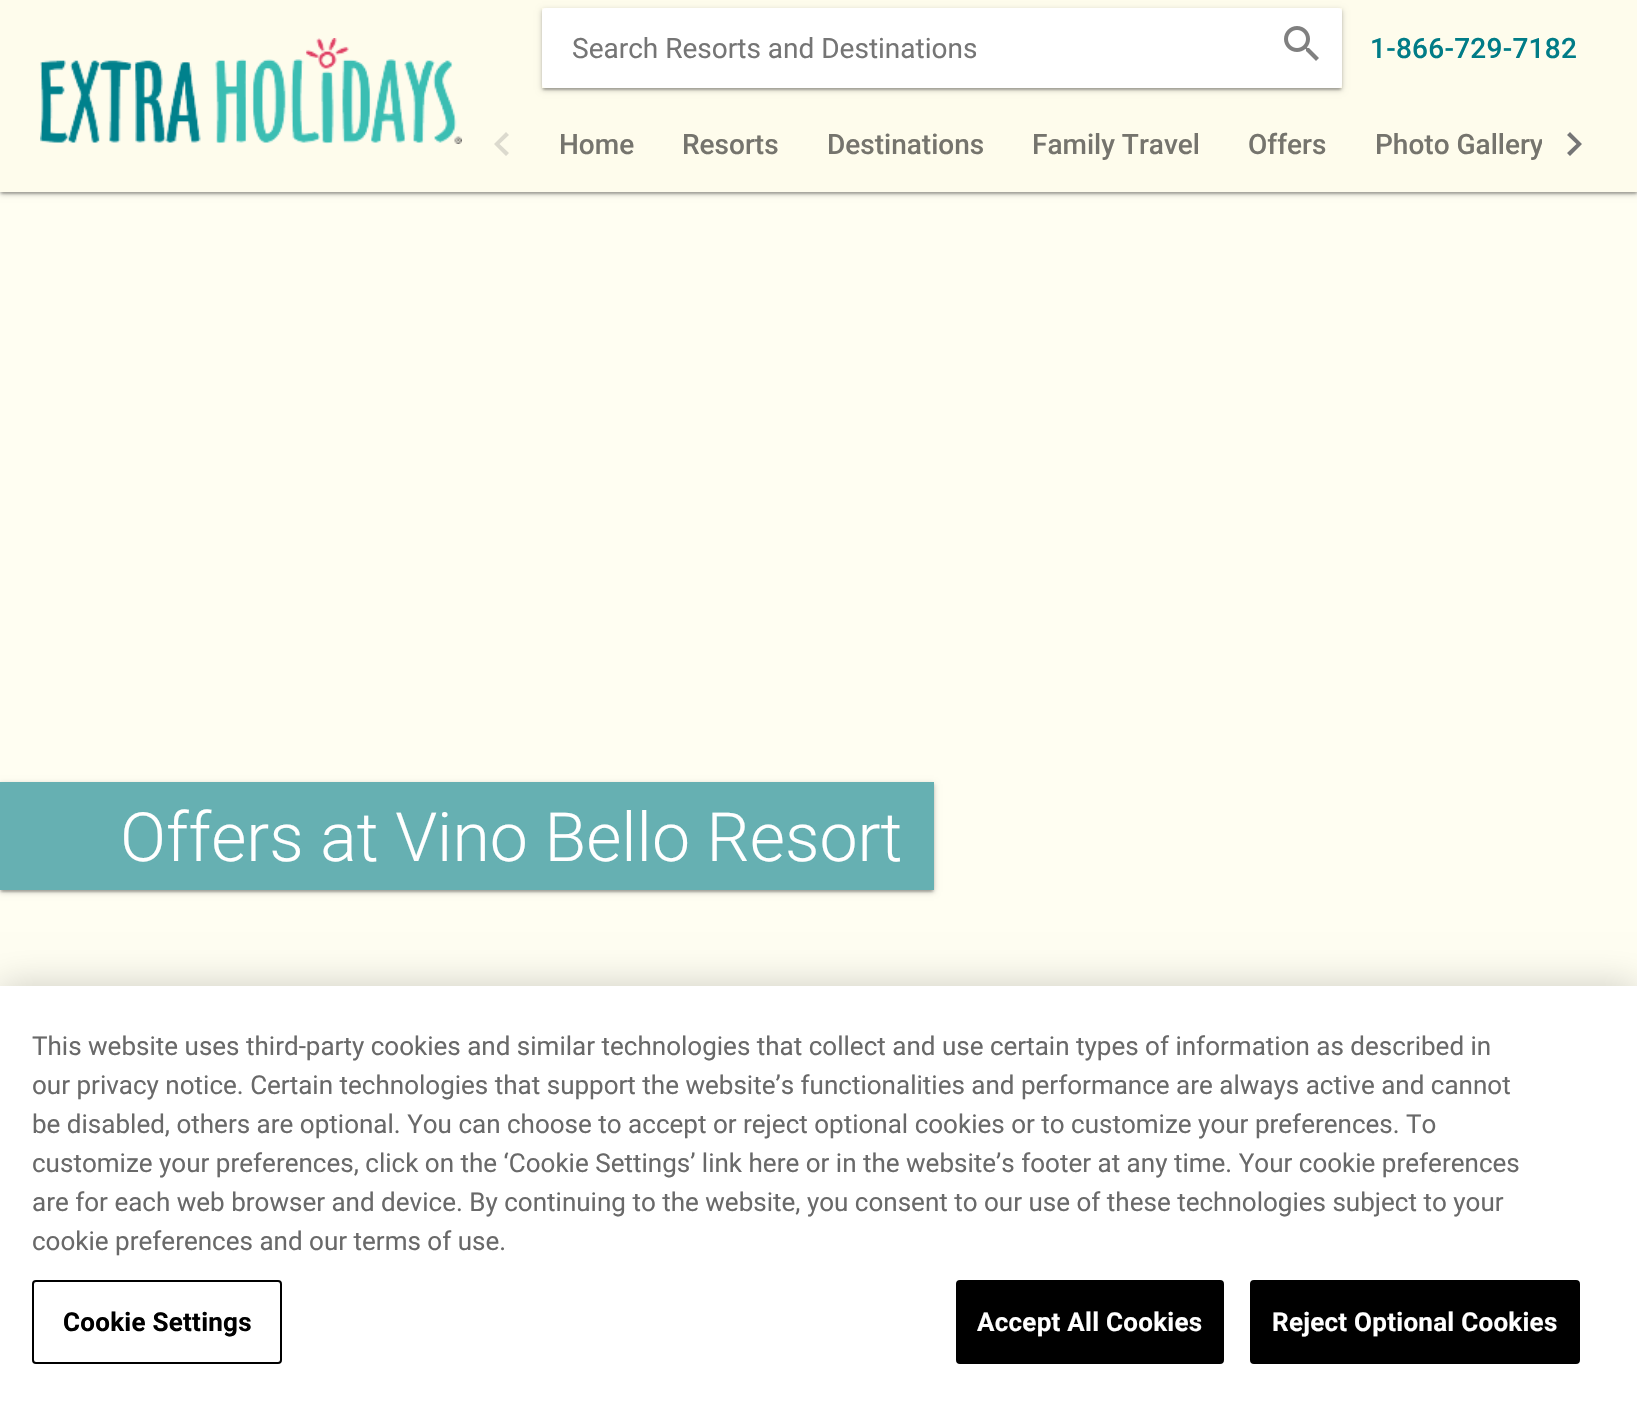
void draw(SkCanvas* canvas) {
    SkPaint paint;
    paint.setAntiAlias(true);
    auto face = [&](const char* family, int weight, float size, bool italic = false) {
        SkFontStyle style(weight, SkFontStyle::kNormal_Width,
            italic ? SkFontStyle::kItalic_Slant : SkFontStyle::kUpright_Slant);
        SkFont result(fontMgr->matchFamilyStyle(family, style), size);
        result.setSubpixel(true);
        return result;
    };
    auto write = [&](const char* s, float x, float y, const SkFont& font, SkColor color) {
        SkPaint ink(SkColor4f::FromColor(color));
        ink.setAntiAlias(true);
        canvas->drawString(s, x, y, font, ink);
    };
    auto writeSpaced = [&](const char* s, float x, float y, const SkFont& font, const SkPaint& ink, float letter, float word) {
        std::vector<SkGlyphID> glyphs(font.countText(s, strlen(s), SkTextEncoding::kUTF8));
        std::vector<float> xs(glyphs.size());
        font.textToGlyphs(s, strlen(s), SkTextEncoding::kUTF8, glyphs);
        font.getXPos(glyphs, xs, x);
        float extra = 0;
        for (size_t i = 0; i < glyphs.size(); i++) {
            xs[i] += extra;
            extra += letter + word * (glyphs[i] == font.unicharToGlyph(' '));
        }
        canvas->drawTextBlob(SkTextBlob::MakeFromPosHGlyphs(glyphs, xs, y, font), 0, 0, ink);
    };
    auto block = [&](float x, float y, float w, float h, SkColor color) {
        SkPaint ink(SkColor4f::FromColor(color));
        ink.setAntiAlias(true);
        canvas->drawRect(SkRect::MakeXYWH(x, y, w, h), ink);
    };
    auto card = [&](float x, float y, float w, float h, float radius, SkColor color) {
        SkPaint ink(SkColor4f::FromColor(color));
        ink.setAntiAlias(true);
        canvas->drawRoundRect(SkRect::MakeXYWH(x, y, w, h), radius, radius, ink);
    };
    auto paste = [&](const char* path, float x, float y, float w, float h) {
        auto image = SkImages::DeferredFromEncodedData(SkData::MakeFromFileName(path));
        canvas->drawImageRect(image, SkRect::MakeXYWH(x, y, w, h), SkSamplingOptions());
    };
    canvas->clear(SkColorSetRGB(255, 254, 242));
    paint.setColor(SkColorSetARGB(31, 0, 0, 0));
    paint.setMaskFilter(SkMaskFilter::MakeBlur(kNormal_SkBlurStyle, 1));
    canvas->drawRect(SkRect::MakeXYWH(2, 6, 1634, 188), paint);
    paint.setMaskFilter(nullptr);
    paint.setColor(SkColorSetARGB(36, 0, 0, 0));
    paint.setMaskFilter(SkMaskFilter::MakeBlur(kNormal_SkBlurStyle, 1));
    canvas->drawRect(SkRect::MakeXYWH(0, 2, 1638, 192), paint);
    paint.setMaskFilter(nullptr);
    paint.setColor(SkColorSetARGB(51, 0, 0, 0));
    paint.setMaskFilter(SkMaskFilter::MakeBlur(kNormal_SkBlurStyle, 3));
    canvas->drawRect(SkRect::MakeXYWH(0, 2, 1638, 192), paint);
    paint.setMaskFilter(nullptr);
    block(0, 0, 1637, 192, SkColorSetRGB(254, 252, 236));
    paste("pic1.png", 40, 38, 422, 106);
    card(542, 8, 800, 80, 4, SK_ColorWHITE);
    canvas->save();
    canvas->clipRect(SkRect::MakeXYWH(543, 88, 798, 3));
    paint.setColor(SkColorSetARGB(31, 0, 0, 0));
    paint.setMaskFilter(SkMaskFilter::MakeBlur(kNormal_SkBlurStyle, 1));
    canvas->drawRect(SkRect::MakeXYWH(544, 14, 796, 76), paint);
    paint.setMaskFilter(nullptr);
    canvas->restore();
    canvas->save();
    canvas->clipPath(SkPathBuilder(SkPathFillType::kEvenOdd).moveTo(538, 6).lineTo(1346, 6).lineTo(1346, 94).lineTo(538, 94).close().moveTo(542, 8).lineTo(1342, 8).lineTo(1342, 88).lineTo(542, 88).close().detach(), true);
    paint.setColor(SkColorSetARGB(36, 0, 0, 0));
    paint.setMaskFilter(SkMaskFilter::MakeBlur(kNormal_SkBlurStyle, 1));
    canvas->drawRect(SkRect::MakeXYWH(542, 10, 800, 80), paint);
    paint.setMaskFilter(nullptr);
    canvas->restore();
    canvas->save();
    canvas->clipPath(SkPathBuilder(SkPathFillType::kEvenOdd).moveTo(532, 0).lineTo(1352, 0).lineTo(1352, 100).lineTo(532, 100).close().moveTo(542, 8).lineTo(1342, 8).lineTo(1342, 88).lineTo(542, 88).close().detach(), true);
    paint.setColor(SkColorSetARGB(51, 0, 0, 0));
    paint.setMaskFilter(SkMaskFilter::MakeBlur(kNormal_SkBlurStyle, 3));
    canvas->drawRect(SkRect::MakeXYWH(542, 10, 800, 80), paint);
    paint.setMaskFilter(nullptr);
    canvas->restore();
    auto kFont1 = face("Roboto", 400, 28);
    write("Search Resorts and Destinations", 572, 58, kFont1, SkColorSetRGB(117, 117, 117));
    paste("pic2.png", 1284, 26, 35, 35);
    auto kFont2 = face("Roboto", 500, 28);
    paint.setColor(SkColorSetRGB(0, 124, 135));
    writeSpaced("1-866-729-7182", 1370, 58, kFont2, paint, 0.25f, 0);
    paint.setColor(SkColorSetRGB(220, 218, 206));
    canvas->drawPath(SkPathBuilder().moveTo(509, 135).lineTo(506, 132).lineTo(494, 144).lineTo(506, 156).lineTo(509, 153).lineTo(499.5f, 144).close().detach(), paint);
    write("Home", 559, 154, kFont2, SkColorSetRGB(117, 116, 109));
    write("Resorts", 682, 154, kFont2, SkColorSetRGB(117, 116, 109));
    write("Destinations", 827, 154, kFont2, SkColorSetRGB(117, 116, 109));
    write("Family Travel", 1032, 154, kFont2, SkColorSetRGB(117, 116, 109));
    write("Offers", 1248, 154, kFont2, SkColorSetRGB(117, 116, 109));
    canvas->save();
    canvas->clipRect(SkRect::MakeXYWH(1350, 96, 192, 96));
    write("Photo Gallery", 1375, 154, kFont2, SkColorSetRGB(117, 116, 109));
    canvas->restore();
    paint.setColor(SK_ColorWHITE);
    canvas->drawPath(SkPathBuilder().moveTo(1570, 132).lineTo(1567, 135).lineTo(1576.5f, 144).lineTo(1567, 153).lineTo(1570, 156).lineTo(1582, 144).close().detach(), paint);
    paint.setColor(SkColorSetARGB(138, 0, 0, 0));
    canvas->drawPath(SkPathBuilder().moveTo(1567, 153).lineTo(1570, 156).lineTo(1582, 144).lineTo(1570, 132).lineTo(1567, 135).lineTo(1576.5f, 144).close().detach(), paint);
    canvas->save();
    canvas->clipRect(SkRect::MakeXYWH(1, 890, 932, 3));
    paint.setColor(SkColorSetARGB(31, 0, 0, 0));
    paint.setMaskFilter(SkMaskFilter::MakeBlur(kNormal_SkBlurStyle, 1));
    canvas->drawRect(SkRect::MakeXYWH(2, 788, 930, 104), paint);
    paint.setMaskFilter(nullptr);
    canvas->restore();
    canvas->save();
    canvas->clipPath(SkPathBuilder(SkPathFillType::kEvenOdd).moveTo(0, 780).lineTo(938, 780).lineTo(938, 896).lineTo(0, 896).close().moveTo(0, 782).lineTo(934, 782).lineTo(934, 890).lineTo(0, 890).close().detach(), true);
    paint.setColor(SkColorSetARGB(36, 0, 0, 0));
    paint.setMaskFilter(SkMaskFilter::MakeBlur(kNormal_SkBlurStyle, 1));
    canvas->drawRect(SkRect::MakeXYWH(0, 784, 934, 108), paint);
    paint.setMaskFilter(nullptr);
    canvas->restore();
    canvas->save();
    canvas->clipPath(SkPathBuilder(SkPathFillType::kEvenOdd).moveTo(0, 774).lineTo(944, 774).lineTo(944, 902).lineTo(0, 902).close().moveTo(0, 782).lineTo(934, 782).lineTo(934, 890).lineTo(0, 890).close().detach(), true);
    paint.setColor(SkColorSetARGB(51, 0, 0, 0));
    paint.setMaskFilter(SkMaskFilter::MakeBlur(kNormal_SkBlurStyle, 3));
    canvas->drawRect(SkRect::MakeXYWH(0, 784, 934, 108), paint);
    paint.setMaskFilter(nullptr);
    canvas->restore();
    block(0, 782, 934, 108, SkColorSetARGB(153, 0, 124, 135));
    auto kFont3 = face("Roboto", 300, 68);
    write("Offers at Vino Bello Resort", 120, 861, kFont3, SK_ColorWHITE);
    paint.setMaskFilter(SkMaskFilter::MakeBlur(kNormal_SkBlurStyle, 18));
    canvas->drawRect(SkRect::MakeXYWH(0, 986, 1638, 418), paint);
    paint.setMaskFilter(nullptr);
    block(0, 986, 1637, 418, SK_ColorWHITE);
    auto kFont4 = face("Roboto", 400, 26.02f);
    write("This website uses third-party cookies and similar technologies that collect and use certain types of information as described in", 32, 1055, kFont4, SkColorSetRGB(105, 105, 105));
    write("our privacy notice. Certain technologies that support the website’s functionalities and performance are always active and cannot", 32, 1094, kFont4, SkColorSetRGB(105, 105, 105));
    write("be disabled, others are optional. You can choose to accept or reject optional cookies or to customize your preferences. To", 32, 1133, kFont4, SkColorSetRGB(105, 105, 105));
    write("customize your preferences, click on the ‘Cookie Settings’ link here or in the website’s footer at any time. Your cookie preferences", 32, 1172, kFont4, SkColorSetRGB(105, 105, 105));
    write("are for each web browser and device. By continuing to the website, you consent to our use of these technologies subject to your", 32, 1211, kFont4, SkColorSetRGB(105, 105, 105));
    write("cookie preferences and our terms of use.", 32, 1250, kFont4, SkColorSetRGB(105, 105, 105));
    paint.setStyle(SkPaint::kStroke_Style);
    paint.setStrokeWidth(2);
    paint.setColor(SK_ColorBLACK);
    canvas->drawRoundRect(SkRect::MakeXYWH(33, 1281, 248, 82), 3, 3, paint);
    auto kFont5 = face("Roboto", 700, 26.02f);
    paint.setStyle(SkPaint::kFill_Style);
    writeSpaced("Cookie Settings", 63, 1331, kFont5, paint, 0.25f, 0);
    canvas->drawRoundRect(SkRect::MakeXYWH(957, 1281, 266, 82), 3, 3, paint);
    paint.setStyle(SkPaint::kStroke_Style);
    canvas->drawRoundRect(SkRect::MakeXYWH(957, 1281, 266, 82), 3, 3, paint);
    paint.setStyle(SkPaint::kFill_Style);
    paint.setColor(SK_ColorWHITE);
    writeSpaced("Accept All Cookies", 977, 1331, kFont5, paint, 0.25f, 0);
    paint.setColor(SK_ColorBLACK);
    canvas->drawRoundRect(SkRect::MakeXYWH(1251, 1281, 328, 82), 3, 3, paint);
    paint.setStyle(SkPaint::kStroke_Style);
    canvas->drawRoundRect(SkRect::MakeXYWH(1251, 1281, 328, 82), 3, 3, paint);
    paint.setStyle(SkPaint::kFill_Style);
    paint.setColor(SK_ColorWHITE);
    writeSpaced("Reject Optional Cookies", 1272, 1331, kFont5, paint, 0.25f, 0);
}
